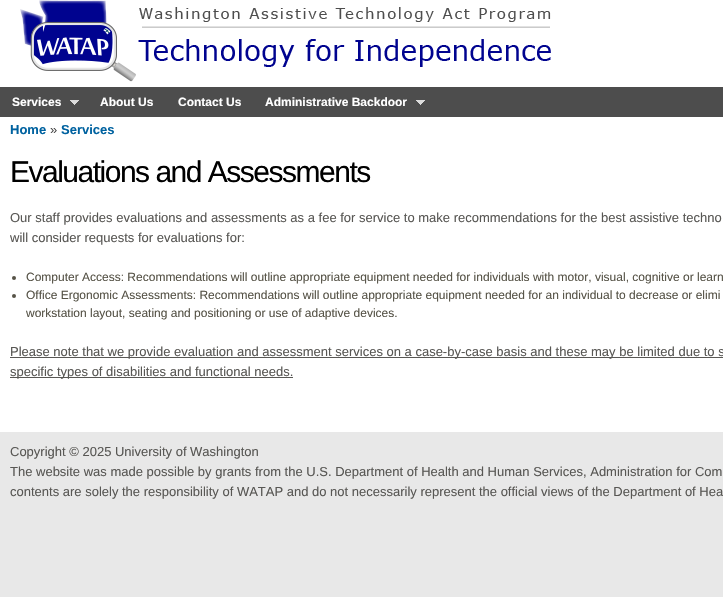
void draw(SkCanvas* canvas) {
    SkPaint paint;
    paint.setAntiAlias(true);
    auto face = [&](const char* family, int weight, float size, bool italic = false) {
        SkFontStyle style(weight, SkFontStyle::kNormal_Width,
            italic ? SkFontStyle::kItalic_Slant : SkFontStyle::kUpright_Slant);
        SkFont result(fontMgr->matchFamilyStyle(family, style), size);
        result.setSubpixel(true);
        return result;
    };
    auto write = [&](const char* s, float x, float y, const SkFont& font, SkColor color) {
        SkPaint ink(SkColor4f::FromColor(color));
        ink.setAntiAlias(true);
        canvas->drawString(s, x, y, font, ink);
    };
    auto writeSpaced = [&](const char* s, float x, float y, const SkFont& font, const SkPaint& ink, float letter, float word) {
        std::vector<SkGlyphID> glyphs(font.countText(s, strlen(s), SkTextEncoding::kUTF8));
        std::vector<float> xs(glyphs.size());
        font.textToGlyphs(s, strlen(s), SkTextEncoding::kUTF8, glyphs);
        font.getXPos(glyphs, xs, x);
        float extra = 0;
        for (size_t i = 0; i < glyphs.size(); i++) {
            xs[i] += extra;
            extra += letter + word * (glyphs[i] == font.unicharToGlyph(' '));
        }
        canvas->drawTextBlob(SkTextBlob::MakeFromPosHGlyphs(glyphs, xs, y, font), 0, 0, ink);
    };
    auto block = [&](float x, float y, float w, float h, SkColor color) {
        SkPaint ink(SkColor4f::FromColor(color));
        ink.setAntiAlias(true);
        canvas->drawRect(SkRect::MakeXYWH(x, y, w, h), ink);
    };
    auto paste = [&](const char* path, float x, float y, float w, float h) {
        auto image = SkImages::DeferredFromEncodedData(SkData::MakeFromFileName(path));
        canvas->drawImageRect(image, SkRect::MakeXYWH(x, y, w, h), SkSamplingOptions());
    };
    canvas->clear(SkColorSetRGB(232, 232, 232));
    block(0, 0, 723, 432, SK_ColorWHITE);
    paste("pic1.png", 20, 0, 531, 82);
    block(0, 87, 723, 30, SkColorSetRGB(77, 77, 77));
    auto kFont1 = face("Liberation Sans", 700, 12);
    write("Services", 12, 106, kFont1, SK_ColorWHITE);
    paste("pic2.png", 70, 100, 9, 5);
    write("About Us", 100, 106, kFont1, SK_ColorWHITE);
    write("Contact Us", 178, 106, kFont1, SK_ColorWHITE);
    write("Administrative Backdoor", 265, 106, kFont1, SK_ColorWHITE);
    paste("pic2.png", 416, 100, 9, 5);
    auto kFont2 = face("Liberation Sans", 700, 13);
    write("Home", 10, 134, kFont2, SkColorSetRGB(0, 98, 160));
    auto kFont3 = face("Liberation Sans", 400, 13);
    write("»", 50, 134, kFont3, SkColorSetRGB(68, 68, 68));
    write("Services", 61, 134, kFont2, SkColorSetRGB(0, 98, 160));
    auto kFont4 = face("Liberation Sans", 400, 30);
    paint.setColor(SK_ColorBLACK);
    writeSpaced("Evaluations and Assessments", 10, 182, kFont4, paint, -1.5f, 0);
    write("Our staff provides evaluations and assessments as a fee for service to make recommendations for the best assistive techno", 10, 222, kFont3, SkColorSetRGB(88, 87, 84));
    write("will consider requests for evaluations for:", 10, 242, kFont3, SkColorSetRGB(88, 87, 84));
    paint.setColor(SkColorSetRGB(86, 83, 71));
    canvas->drawCircle(14, 278, 2, paint);
    auto kFont5 = face("Liberation Sans", 400, 12);
    write("Computer Access: Recommendations will outline appropriate equipment needed for individuals with motor, visual, cognitive or learn", 26, 281, kFont5, SkColorSetRGB(86, 83, 71));
    canvas->drawCircle(14, 296, 2, paint);
    write("Office Ergonomic Assessments: Recommendations will outline appropriate equipment needed for an individual to decrease or elimi", 26, 299, kFont5, SkColorSetRGB(86, 83, 71));
    write("workstation layout, seating and positioning or use of adaptive devices.", 26, 317, kFont5, SkColorSetRGB(86, 83, 71));
    block(10, 357, 713, 1, SkColorSetRGB(88, 87, 84));
    write("Please note that we provide evaluation and assessment services on a case-by-case basis and these may be limited due to s", 10, 356, kFont3, SkColorSetRGB(88, 87, 84));
    block(10, 377, 283, 1, SkColorSetRGB(88, 87, 84));
    write("specific types of disabilities and functional needs.", 10, 376, kFont3, SkColorSetRGB(88, 87, 84));
    write("Copyright © 2025 University of Washington", 10, 456, kFont3, SkColorSetRGB(88, 87, 84));
    write("The website was made possible by grants from the U.S. Department of Health and Human Services, Administration for Com", 10, 476, kFont3, SkColorSetRGB(88, 87, 84));
    write("contents are solely the responsibility of WATAP and do not necessarily represent the official views of the Department of Hea", 10, 496, kFont3, SkColorSetRGB(88, 87, 84));
}
